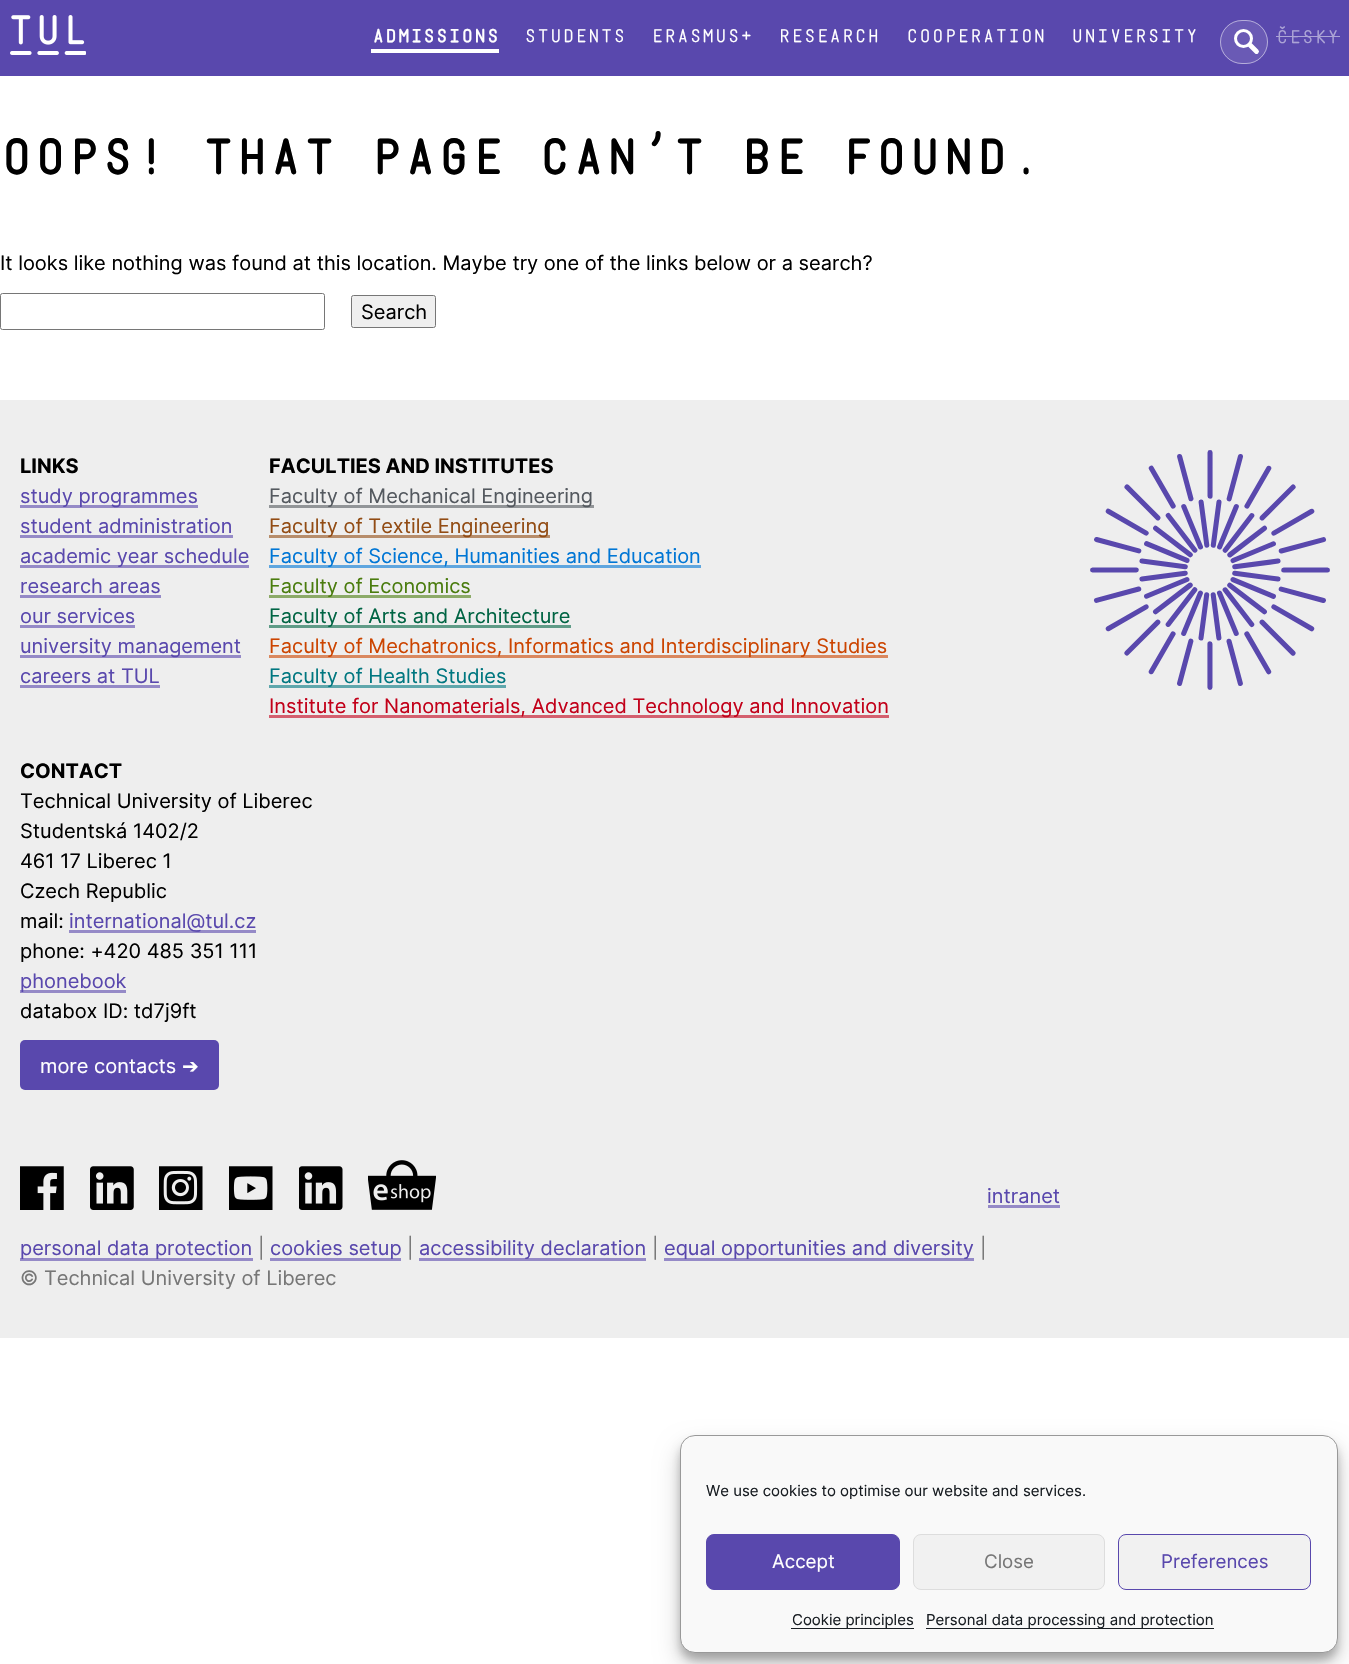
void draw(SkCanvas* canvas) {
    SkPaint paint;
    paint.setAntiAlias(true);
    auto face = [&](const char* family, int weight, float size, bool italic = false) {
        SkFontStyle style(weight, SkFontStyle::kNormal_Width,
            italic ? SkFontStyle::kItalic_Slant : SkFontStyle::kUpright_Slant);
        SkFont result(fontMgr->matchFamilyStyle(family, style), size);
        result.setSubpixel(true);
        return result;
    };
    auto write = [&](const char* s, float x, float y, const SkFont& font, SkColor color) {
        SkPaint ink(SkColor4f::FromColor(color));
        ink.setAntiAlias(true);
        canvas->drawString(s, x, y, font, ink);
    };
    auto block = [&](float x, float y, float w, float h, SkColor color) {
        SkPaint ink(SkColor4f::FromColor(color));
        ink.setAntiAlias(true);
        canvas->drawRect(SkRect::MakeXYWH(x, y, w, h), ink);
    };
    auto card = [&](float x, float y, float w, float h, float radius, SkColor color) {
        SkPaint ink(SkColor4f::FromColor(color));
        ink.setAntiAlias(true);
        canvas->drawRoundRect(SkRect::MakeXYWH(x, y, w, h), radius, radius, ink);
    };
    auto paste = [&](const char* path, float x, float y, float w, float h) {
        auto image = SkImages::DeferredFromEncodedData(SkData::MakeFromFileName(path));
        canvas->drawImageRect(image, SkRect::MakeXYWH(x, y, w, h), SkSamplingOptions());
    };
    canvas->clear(SK_ColorWHITE);
    block(0, 0, 1349, 76, SkColorSetRGB(89, 72, 173));
    paste("pic1.png", 10, 15, 76, 40);
    block(371, 49, 128, 4, SK_ColorWHITE);
    auto kFont1 = face("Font", 700, 17);
    write("Admissions", 372, 42, kFont1, SK_ColorWHITE);
    auto kFont2 = face("Font", 400, 17);
    write("Students", 524, 42, kFont2, SK_ColorWHITE);
    write("Erasmus+", 651, 42, kFont2, SK_ColorWHITE);
    write("Research", 778, 42, kFont2, SK_ColorWHITE);
    write("Cooperation", 906, 42, kFont2, SK_ColorWHITE);
    write("University", 1071, 42, kFont2, SK_ColorWHITE);
    card(1220, 20, 48, 44, 22, SkColorSetRGB(106, 90, 181));
    paint.setStyle(SkPaint::kStroke_Style);
    paint.setStrokeWidth(3);
    paint.setColor(SK_ColorWHITE);
    canvas->drawCircle(1243.5f, 38.5f, 8, paint);
    paint.setStrokeWidth(4.8f);
    paint.setStrokeCap(SkPaint::kRound_Cap);
    canvas->drawPath(SkPathBuilder().moveTo(1256.5f, 51.5f).lineTo(1250, 45).detach(), paint);
    paint.setStrokeWidth(1);
    paint.setStrokeCap(SkPaint::kButt_Cap);
    paint.setColor(SkColorSetARGB(128, 255, 255, 255));
    canvas->drawRoundRect(SkRect::MakeXYWH(1220.5f, 20.5f, 47, 43), 21.5f, 21.5f, paint);
    write("Česky", 1276, 43, kFont2, SkColorSetRGB(172, 164, 214));
    block(1276, 36, 64, 1, SkColorSetRGB(172, 164, 214));
    auto kFont3 = face("Font", 700, 45);
    write("Oops! That page can’t be found.", 0, 173, kFont3, SK_ColorBLACK);
    auto kFont4 = face("Inter", 400, 20);
    write("It looks like nothing was found at this location. Maybe try one of the links below or a search?", 0, 270, kFont4, SK_ColorBLACK);
    paint.setColor(SkColorSetRGB(118, 118, 118));
    canvas->drawRoundRect(SkRect::MakeXYWH(0.5f, 293.5f, 324, 36), 2, 2, paint);
    paint.setStyle(SkPaint::kFill_Style);
    paint.setColor(SkColorSetRGB(239, 239, 239));
    canvas->drawRoundRect(SkRect::MakeXYWH(351.5f, 295.5f, 84, 32), 2, 2, paint);
    paint.setStyle(SkPaint::kStroke_Style);
    paint.setColor(SkColorSetRGB(118, 118, 118));
    canvas->drawRoundRect(SkRect::MakeXYWH(351.5f, 295.5f, 84, 32), 2, 2, paint);
    write("Search", 361, 319, kFont4, SK_ColorBLACK);
    block(0, 400, 1349, 938, SkColorSetRGB(238, 238, 238));
    paste("pic2.png", 1090, 450, 240, 240);
    auto kFont5 = face("Inter", 700, 20);
    write("LINKS", 20, 473, kFont5, SK_ColorBLACK);
    block(20, 505, 178, 3, SkColorSetRGB(149, 138, 199));
    write("study programmes", 20, 503, kFont4, SkColorSetRGB(89, 72, 173));
    write("student administration", 20, 533, kFont4, SkColorSetRGB(89, 72, 173));
    block(20, 535, 213, 3, SkColorSetRGB(149, 138, 199));
    block(20, 565, 229, 3, SkColorSetRGB(149, 138, 199));
    write("academic year schedule", 20, 563, kFont4, SkColorSetRGB(89, 72, 173));
    write("research areas", 20, 593, kFont4, SkColorSetRGB(89, 72, 173));
    block(20, 595, 141, 3, SkColorSetRGB(149, 138, 199));
    write("our services", 20, 623, kFont4, SkColorSetRGB(89, 72, 173));
    block(20, 625, 115, 3, SkColorSetRGB(149, 138, 199));
    block(20, 655, 221, 3, SkColorSetRGB(149, 138, 199));
    write("university management", 20, 653, kFont4, SkColorSetRGB(89, 72, 173));
    write("careers at TUL", 20, 683, kFont4, SkColorSetRGB(89, 72, 173));
    block(20, 685, 140, 3, SkColorSetRGB(149, 138, 199));
    write("FACULTIES AND INSTITUTES", 269, 473, kFont5, SK_ColorBLACK);
    block(269, 505, 325, 3, SkColorSetRGB(146, 149, 152));
    write("Faculty of Mechanical Engineering", 269, 503, kFont4, SkColorSetRGB(84, 89, 95));
    block(269, 535, 281, 3, SkColorSetRGB(183, 141, 107));
    write("Faculty of Textile Engineering", 269, 533, kFont4, SkColorSetRGB(146, 76, 20));
    block(269, 565, 432, 3, SkColorSetRGB(95, 166, 223));
    write("Faculty of Science, Humanities and Education", 269, 563, kFont4, SkColorSetRGB(0, 118, 213));
    block(269, 595, 202, 3, SkColorSetRGB(140, 170, 104));
    write("Faculty of Economics", 269, 593, kFont4, SkColorSetRGB(74, 124, 14));
    block(269, 625, 302, 3, SkColorSetRGB(95, 155, 135));
    write("Faculty of Arts and Architecture", 269, 623, kFont4, SkColorSetRGB(0, 100, 67));
    block(269, 655, 619, 3, SkColorSetRGB(218, 136, 95));
    write("Faculty of Mechatronics, Informatics and Interdisciplinary Studies", 269, 653, kFont4, SkColorSetRGB(204, 68, 0));
    block(269, 685, 237, 3, SkColorSetRGB(95, 167, 172));
    write("Faculty of Health Studies", 269, 683, kFont4, SkColorSetRGB(0, 119, 128));
    block(269, 715, 620, 3, SkColorSetRGB(212, 95, 110));
    write("Institute for Nanomaterials, Advanced Technology and Innovation", 269, 713, kFont4, SkColorSetRGB(194, 0, 25));
    write("CONTACT", 20, 778, kFont5, SK_ColorBLACK);
    write("Technical University of Liberec", 20, 808, kFont4, SK_ColorBLACK);
    write("Studentská 1402/2", 20, 838, kFont4, SK_ColorBLACK);
    write("461 17 Liberec 1", 20, 868, kFont4, SK_ColorBLACK);
    write("Czech Republic", 20, 898, kFont4, SK_ColorBLACK);
    write("mail:", 20, 928, kFont4, SK_ColorBLACK);
    block(69, 930, 187, 3, SkColorSetRGB(149, 138, 199));
    write("international@tul.cz", 69, 928, kFont4, SkColorSetRGB(89, 72, 173));
    write("phone: +420 485 351 111", 20, 958, kFont4, SK_ColorBLACK);
    block(20, 990, 106, 3, SkColorSetRGB(149, 138, 199));
    write("phonebook", 20, 988, kFont4, SkColorSetRGB(89, 72, 173));
    write("databox ID: td7j9ft", 20, 1018, kFont4, SK_ColorBLACK);
    card(20, 1040, 199, 50, 5, SkColorSetRGB(89, 72, 173));
    write("more contacts", 40, 1073, kFont4, SK_ColorWHITE);
    auto kFont6 = face("DejaVu Sans", 400, 20);
    write("➔", 182, 1073, kFont6, SK_ColorWHITE);
    paste("pic3.png", 20, 1166, 44, 44);
    paste("pic4.png", 90, 1166, 44, 44);
    paste("pic5.png", 159, 1166, 44, 44);
    paste("pic6.png", 229, 1166, 44, 44);
    paste("pic7.png", 299, 1166, 44, 44);
    paste("pic8.png", 368, 1160, 68, 50);
    write("intranet", 987, 1203, kFont4, SkColorSetRGB(89, 72, 173));
    block(988, 1205, 72, 3, SkColorSetRGB(149, 138, 199));
    block(20, 1258, 233, 3, SkColorSetRGB(149, 138, 199));
    write("personal data protection", 20, 1255, kFont4, SkColorSetRGB(89, 72, 173));
    write("|", 258, 1255, kFont4, SkColorSetRGB(119, 119, 119));
    block(270, 1258, 131, 3, SkColorSetRGB(149, 138, 199));
    write("cookies setup", 270, 1255, kFont4, SkColorSetRGB(89, 72, 173));
    write("|", 407, 1255, kFont4, SkColorSetRGB(119, 119, 119));
    block(419, 1258, 227, 3, SkColorSetRGB(149, 138, 199));
    write("accessibility declaration", 419, 1255, kFont4, SkColorSetRGB(89, 72, 173));
    write("|", 652, 1255, kFont4, SkColorSetRGB(119, 119, 119));
    block(664, 1258, 310, 3, SkColorSetRGB(149, 138, 199));
    write("equal opportunities and diversity", 664, 1255, kFont4, SkColorSetRGB(89, 72, 173));
    write("|", 980, 1255, kFont4, SkColorSetRGB(119, 119, 119));
    write("© Technical University of Liberec", 20, 1285, kFont4, SkColorSetRGB(119, 119, 119));
    paint.setStyle(SkPaint::kFill_Style);
    paint.setColor(SkColorSetARGB(59, 0, 0, 0));
    paint.setMaskFilter(SkMaskFilter::MakeBlur(kNormal_SkBlurStyle, 4));
    canvas->drawRoundRect(SkRect::MakeXYWH(680, 1443, 658, 217), 15, 15, paint);
    paint.setMaskFilter(nullptr);
    paint.setColor(SkColorSetARGB(48, 0, 0, 0));
    paint.setMaskFilter(SkMaskFilter::MakeBlur(kNormal_SkBlurStyle, 12.5f));
    canvas->drawRoundRect(SkRect::MakeXYWH(680, 1448, 658, 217), 15, 15, paint);
    paint.setMaskFilter(nullptr);
    paint.setColor(SkColorSetRGB(249, 249, 249));
    canvas->drawRoundRect(SkRect::MakeXYWH(680.5f, 1435.5f, 657, 217), 14.5f, 14.5f, paint);
    paint.setStyle(SkPaint::kStroke_Style);
    paint.setColor(SkColorSetRGB(153, 153, 153));
    canvas->drawRoundRect(SkRect::MakeXYWH(680.5f, 1435.5f, 657, 217), 14.5f, 14.5f, paint);
    auto kFont7 = face("Inter", 400, 15);
    write("We use cookies to optimise our website and services.", 706, 1496, kFont7, SkColorSetRGB(25, 30, 35));
    paint.setStyle(SkPaint::kFill_Style);
    paint.setColor(SkColorSetRGB(89, 72, 173));
    canvas->drawRoundRect(SkRect::MakeXYWH(706.5f, 1534.5f, 193, 55), 7.5f, 7.5f, paint);
    paint.setStyle(SkPaint::kStroke_Style);
    canvas->drawRoundRect(SkRect::MakeXYWH(706.5f, 1534.5f, 193, 55), 7.5f, 7.5f, paint);
    auto kFont8 = face("Inter", 400, 18.75f);
    write("Accept", 772, 1568, kFont8, SK_ColorWHITE);
    paint.setStyle(SkPaint::kFill_Style);
    paint.setColor(SkColorSetRGB(241, 241, 241));
    canvas->drawRoundRect(SkRect::MakeXYWH(913.5f, 1534.5f, 191, 55), 7.5f, 7.5f, paint);
    paint.setStyle(SkPaint::kStroke_Style);
    paint.setColor(SkColorSetRGB(221, 221, 221));
    canvas->drawRoundRect(SkRect::MakeXYWH(913.5f, 1534.5f, 191, 55), 7.5f, 7.5f, paint);
    write("Close", 984, 1568, kFont8, SkColorSetRGB(119, 119, 119));
    paint.setStyle(SkPaint::kFill_Style);
    paint.setColor(SkColorSetRGB(241, 241, 241));
    canvas->drawRoundRect(SkRect::MakeXYWH(1118.5f, 1534.5f, 192, 55), 7.5f, 7.5f, paint);
    paint.setStyle(SkPaint::kStroke_Style);
    paint.setColor(SkColorSetRGB(89, 72, 173));
    canvas->drawRoundRect(SkRect::MakeXYWH(1118.5f, 1534.5f, 192, 55), 7.5f, 7.5f, paint);
    write("Preferences", 1161, 1568, kFont8, SkColorSetRGB(89, 72, 173));
    block(791, 1628, 123, 1, SkColorSetRGB(25, 30, 35));
    write("Cookie principles", 792, 1625, kFont7, SkColorSetRGB(25, 30, 35));
    block(926, 1628, 288, 1, SkColorSetRGB(25, 30, 35));
    write("Personal data processing and protection", 926, 1625, kFont7, SkColorSetRGB(25, 30, 35));
}
